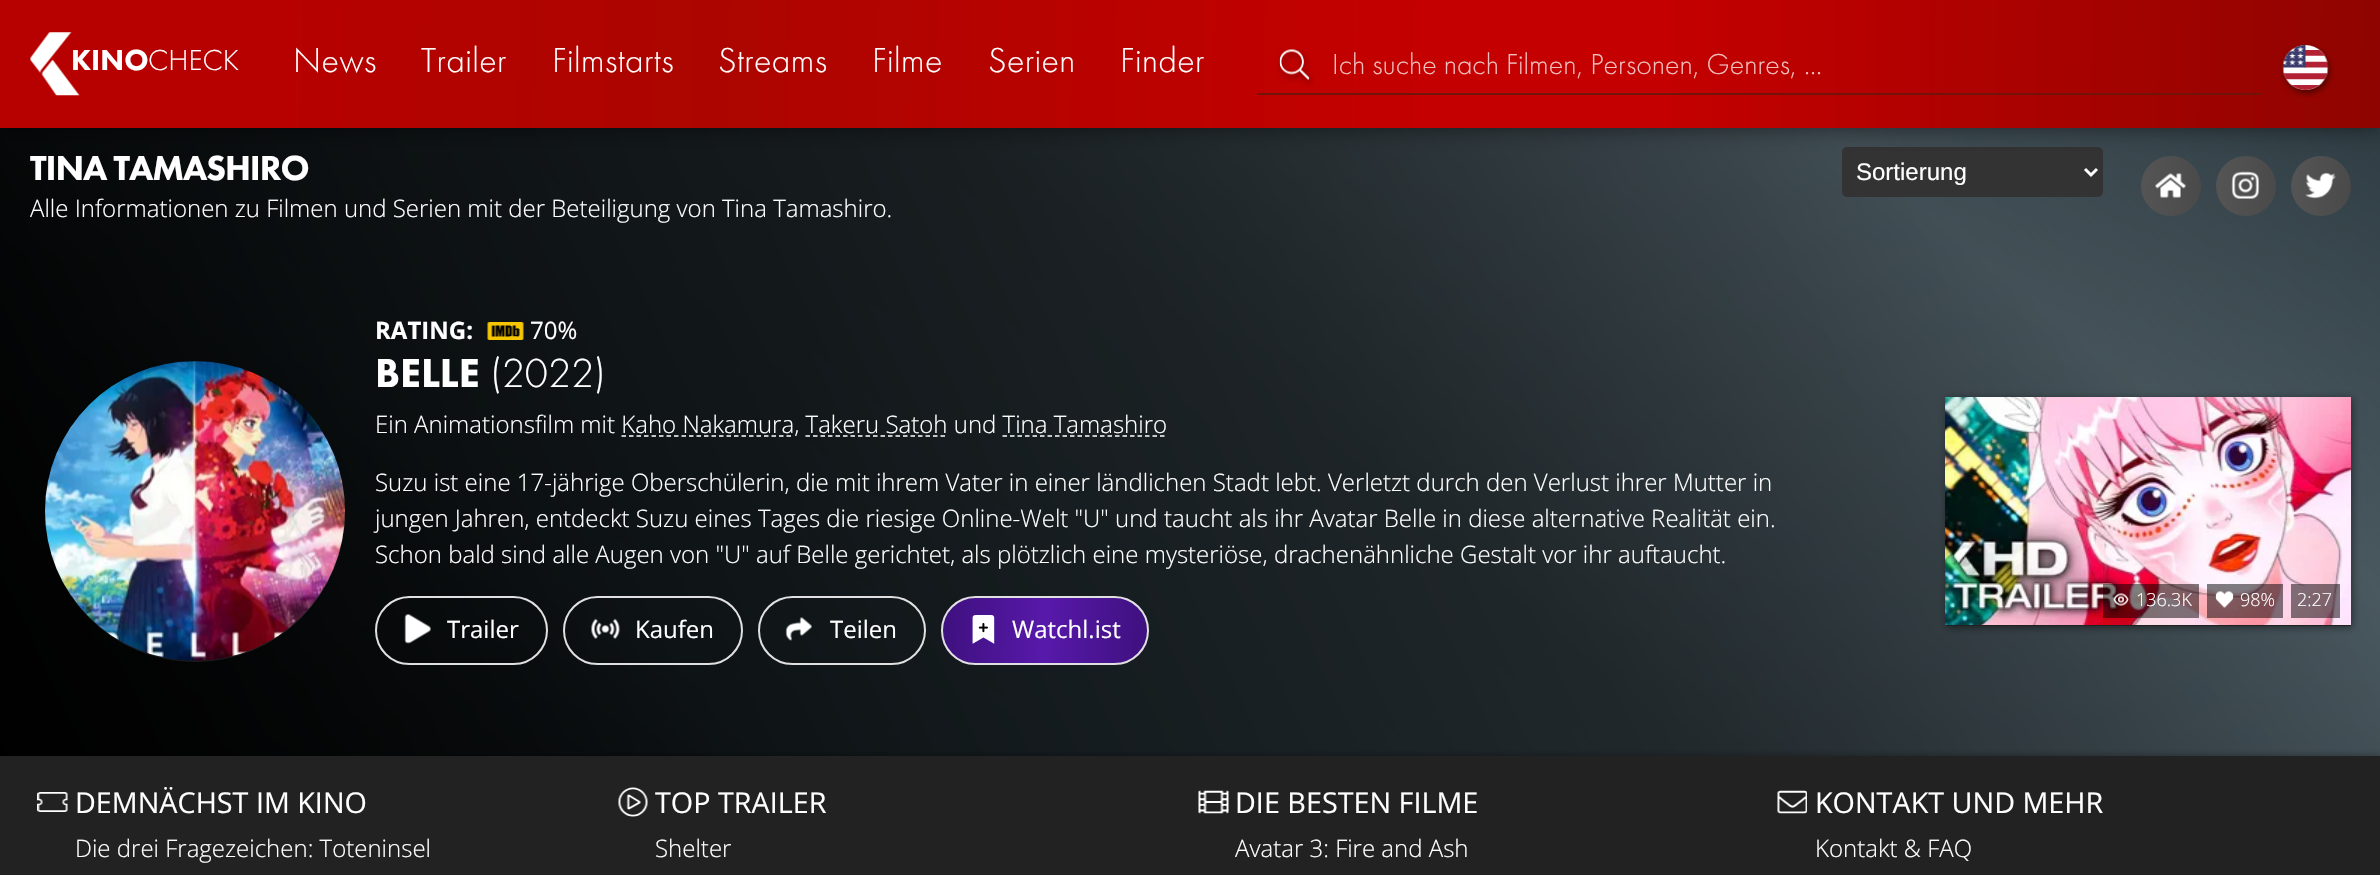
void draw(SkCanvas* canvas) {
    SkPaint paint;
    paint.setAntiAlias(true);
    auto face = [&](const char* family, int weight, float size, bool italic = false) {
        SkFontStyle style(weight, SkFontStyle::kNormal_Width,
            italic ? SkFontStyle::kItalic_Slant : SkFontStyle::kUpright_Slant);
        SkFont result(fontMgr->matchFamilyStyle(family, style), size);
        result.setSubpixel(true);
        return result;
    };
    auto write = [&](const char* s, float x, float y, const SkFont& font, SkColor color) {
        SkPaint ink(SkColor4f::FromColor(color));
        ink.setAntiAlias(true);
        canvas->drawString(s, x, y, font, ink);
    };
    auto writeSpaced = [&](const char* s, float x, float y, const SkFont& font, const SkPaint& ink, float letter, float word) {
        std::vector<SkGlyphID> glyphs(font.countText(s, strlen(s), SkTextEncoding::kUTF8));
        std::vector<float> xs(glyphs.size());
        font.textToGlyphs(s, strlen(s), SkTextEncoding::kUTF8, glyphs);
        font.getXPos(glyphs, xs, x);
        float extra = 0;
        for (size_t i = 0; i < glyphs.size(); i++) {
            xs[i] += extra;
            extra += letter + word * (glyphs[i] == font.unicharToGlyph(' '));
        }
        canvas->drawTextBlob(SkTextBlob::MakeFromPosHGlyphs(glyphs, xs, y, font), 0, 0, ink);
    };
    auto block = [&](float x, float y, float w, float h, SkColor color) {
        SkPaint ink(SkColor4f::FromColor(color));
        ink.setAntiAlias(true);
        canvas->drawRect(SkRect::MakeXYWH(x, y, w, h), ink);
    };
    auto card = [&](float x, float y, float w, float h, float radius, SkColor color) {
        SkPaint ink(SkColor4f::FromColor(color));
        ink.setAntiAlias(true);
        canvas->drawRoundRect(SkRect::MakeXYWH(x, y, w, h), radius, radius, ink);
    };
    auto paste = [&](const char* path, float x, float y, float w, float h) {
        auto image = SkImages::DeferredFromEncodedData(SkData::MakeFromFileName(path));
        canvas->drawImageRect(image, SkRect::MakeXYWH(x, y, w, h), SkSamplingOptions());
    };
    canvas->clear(SK_ColorWHITE);
    {
        const SkColor colors[] = {SkColorSetRGB(38, 50, 56), SkColorSetRGB(73, 101, 113), SkColorSetRGB(78, 96, 105), SkColorSetRGB(120, 144, 156), SkColorSetRGB(69, 90, 100)};
        const float stops[] = {0.07f, 0.25f, 0.54f, 0.82f, 1};
        const SkPoint ends[] = {{541, 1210}, {1839, -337}};
        paint.setShader(SkGradientShader::MakeLinear(ends, colors, stops, 5, SkTileMode::kClamp));
        paint.setAlpha(255);
    }
    canvas->drawRect(SkRect::MakeXYWH(0, 128, 2380, 628), paint);
    {
        const SkColor colors[] = {SK_ColorBLACK, SkColorSetARGB(0, 0, 0, 0)};
        const float stops[] = {0, 1};
        const SkPoint ends[] = {{90, 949}, {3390, -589}};
        paint.setShader(SkGradientShader::MakeLinear(ends, colors, stops, 2, SkTileMode::kClamp));
        paint.setAlpha(255);
    }
    canvas->drawRect(SkRect::MakeXYWH(0, 128, 2380, 628), paint);
    card(1842, 147, 261, 50, 5, SkColorSetRGB(51, 51, 51));
    {
        const SkColor colors[] = {SkColorSetRGB(85, 85, 85), SkColorSetRGB(74, 74, 74), SkColorSetRGB(85, 85, 85)};
        const float stops[] = {0, 0.5f, 1};
        const SkPoint ends[] = {{2139, 183}, {2262, 189}};
        paint.setShader(SkGradientShader::MakeLinear(ends, colors, stops, 3, SkTileMode::kClamp));
        paint.setAlpha(255);
    }
    canvas->drawCircle(2171, 186, 30, paint);
    {
        const SkColor colors[] = {SkColorSetRGB(85, 85, 85), SkColorSetRGB(74, 74, 74), SkColorSetRGB(85, 85, 85)};
        const float stops[] = {0, 0.5f, 1};
        const SkPoint ends[] = {{2214, 183}, {2337, 189}};
        paint.setShader(SkGradientShader::MakeLinear(ends, colors, stops, 3, SkTileMode::kClamp));
        paint.setAlpha(255);
    }
    canvas->drawCircle(2246, 186, 30, paint);
    {
        const SkColor colors[] = {SkColorSetRGB(85, 85, 85), SkColorSetRGB(74, 74, 74), SkColorSetRGB(85, 85, 85)};
        const float stops[] = {0, 0.5f, 1};
        const SkPoint ends[] = {{2289, 183}, {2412, 189}};
        paint.setShader(SkGradientShader::MakeLinear(ends, colors, stops, 3, SkTileMode::kClamp));
        paint.setAlpha(255);
    }
    canvas->drawCircle(2321, 186, 30, paint);
    paint.setShader(nullptr);
    paint.setColor(SkColorSetARGB(128, 0, 0, 0));
    paint.setMaskFilter(SkMaskFilter::MakeBlur(kNormal_SkBlurStyle, 11));
    canvas->drawRect(SkRect::MakeXYWH(0, 0, 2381, 128), paint);
    paint.setMaskFilter(nullptr);
    {
        const SkColor colors[] = {SkColorSetRGB(183, 1, 0), SkColorSetRGB(172, 5, 0), SkColorSetRGB(196, 0, 0), SkColorSetRGB(196, 0, 0), SkColorSetRGB(143, 4, 0)};
        const float stops[] = {0.1f, 0.3f, 0.6f, 0.7f, 1};
        const SkPoint ends[] = {{-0.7f, 43}, {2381, 85}};
        paint.setShader(SkGradientShader::MakeLinear(ends, colors, stops, 5, SkTileMode::kClamp));
        paint.setAlpha(255);
    }
    canvas->drawRect(SkRect::MakeXYWH(0, 0, 2380, 128), paint);
    auto kFont1 = face("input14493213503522", 400, 30);
    write("KINO", 71, 70, kFont1, SK_ColorWHITE);
    paste("pic1.png", 30, 32, 50, 64);
    auto kFont2 = face("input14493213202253", 400, 30);
    write("CHECK", 148, 70, kFont2, SK_ColorWHITE);
    auto kFont3 = face("input14493213202253", 400, 36);
    paint.setShader(nullptr);
    paint.setColor(SK_ColorWHITE);
    writeSpaced("News", 293, 72, kFont3, paint, 0.4f, 0);
    writeSpaced("Trailer", 421, 72, kFont3, paint, 0.4f, 0);
    writeSpaced("Filmstarts", 552, 72, kFont3, paint, 0.4f, 0);
    writeSpaced("Streams", 718, 72, kFont3, paint, 0.4f, 0);
    writeSpaced("Filme", 872, 72, kFont3, paint, 0.4f, 0);
    writeSpaced("Serien", 988, 72, kFont3, paint, 0.4f, 0);
    writeSpaced("Finder", 1120, 72, kFont3, paint, 0.4f, 0);
    paste("pic2.png", 1276, 48, 38, 38);
    block(1257, 93, 1004, 2, SkColorSetRGB(115, 18, 8));
    write("Ich suche nach Filmen, Personen, Genres, ...", 1332, 74, kFont2, SkColorSetRGB(240, 191, 191));
    paste("pic3.png", 2280, 43, 54, 55);
    auto kFont4 = face("input14493213503522", 400, 36);
    writeSpaced("TINA TAMASHIRO", 30, 180, kFont4, paint, -1.1f, 0);
    auto kFont5 = face("Open Sans", 300, 24);
    write("Alle Informationen zu Filmen und Serien mit der Beteiligung von Tina Tamashiro.", 30, 217, kFont5, SK_ColorWHITE);
    paint.setStyle(SkPaint::kStroke_Style);
    paint.setStrokeWidth(3);
    canvas->drawPath(SkPathBuilder().moveTo(2085, 169).lineTo(2091, 175).lineTo(2097, 169).detach(), paint);
    auto kFont6 = face("Liberation Sans", 400, 24);
    write("Sortierung", 1856, 180, kFont6, SK_ColorWHITE);
    paste("pic4.png", 2155, 173, 31, 25);
    paste("pic5.png", 2231, 171, 29, 28);
    paste("pic6.png", 2305, 172, 31, 27);
    paint.setStyle(SkPaint::kFill_Style);
    {
        const SkColor colors[] = {SK_ColorBLACK, SkColorSetRGB(24, 24, 24), SkColorSetRGB(33, 33, 33), SkColorSetRGB(47, 47, 47), SK_ColorBLACK};
        const float stops[] = {0, 0.16f, 0.5f, 0.77f, 1};
        const SkPoint ends[] = {{25, 635}, {365, 388}};
        paint.setShader(SkGradientShader::MakeLinear(ends, colors, stops, 5, SkTileMode::kClamp));
        paint.setAlpha(255);
    }
    canvas->drawCircle(195, 512, 150, paint);
    paste("pic7.png", 45, 361, 300, 300);
    auto kFont7 = face("Open Sans", 700, 24);
    write("RATING:", 375, 339, kFont7, SK_ColorWHITE);
    paste("pic8.png", 487, 322, 37, 18);
    auto kFont8 = face("Open Sans", 400, 24);
    write("70%", 530, 339, kFont8, SK_ColorWHITE);
    auto kFont9 = face("input14493213503522", 400, 42);
    write("BELLE", 375, 387, kFont9, SK_ColorWHITE);
    auto kFont10 = face("input14493213202253", 400, 42);
    write("(2022)", 490, 387, kFont10, SK_ColorWHITE);
    write("Ein Animationsfilm mit Kaho Nakamura, Takeru Satoh und Tina Tamashiro", 375, 433, kFont5, SK_ColorWHITE);
    paint.setStyle(SkPaint::kStroke_Style);
    paint.setStrokeWidth(1.5f);
    paint.setShader(nullptr);
    paint.setColor(SK_ColorWHITE);
    paint.setPathEffect(SkDashPathEffect::Make({{4.5f, 3}}, 0));
    canvas->drawPath(SkPathBuilder().moveTo(621.5f, 436).lineTo(794, 436).detach(), paint);
    paint.setPathEffect(nullptr);
    paint.setPathEffect(SkDashPathEffect::Make({{4.5f, 3}}, 0));
    canvas->drawPath(SkPathBuilder().moveTo(805.5f, 436).lineTo(947.5f, 436).detach(), paint);
    paint.setPathEffect(nullptr);
    paint.setPathEffect(SkDashPathEffect::Make({{4.5f, 3}}, 0));
    canvas->drawPath(SkPathBuilder().moveTo(1002.5f, 436).lineTo(1167, 436).detach(), paint);
    paint.setPathEffect(nullptr);
    write("Suzu ist eine 17-jährige Oberschülerin, die mit ihrem Vater in einer ländlichen Stadt lebt. Verletzt durch den Verlust ihrer Mutter in", 375, 491, kFont5, SK_ColorWHITE);
    write("jungen Jahren, entdeckt Suzu eines Tages die riesige Online-Welt \"U\" und taucht als ihr Avatar Belle in diese alternative Realität ein.", 375, 527, kFont5, SK_ColorWHITE);
    write("Schon bald sind alle Augen von \"U\" auf Belle gerichtet, als plötzlich eine mysteriöse, drachenähnliche Gestalt vor ihr auftaucht.", 375, 563, kFont5, SK_ColorWHITE);
    paint.setStrokeWidth(2);
    paint.setColor(SkColorSetRGB(224, 224, 224));
    canvas->drawRoundRect(SkRect::MakeXYWH(376, 597, 171, 67), 33.5f, 33.5f, paint);
    paste("pic9.png", 404, 614, 27, 30);
    write("Trailer", 447, 638, kFont8, SK_ColorWHITE);
    canvas->drawRoundRect(SkRect::MakeXYWH(564, 597, 178, 67), 33.5f, 33.5f, paint);
    paste("pic10.png", 591, 618, 29, 21);
    write("Kaufen", 635, 638, kFont8, SK_ColorWHITE);
    canvas->drawRoundRect(SkRect::MakeXYWH(759, 597, 166, 67), 33.5f, 33.5f, paint);
    paste("pic11.png", 785, 617, 27, 24);
    write("Teilen", 830, 638, kFont8, SK_ColorWHITE);
    canvas->save();
    canvas->clipPath(SkPathBuilder().moveTo(975.5f, 596).lineTo(1114.5f, 596).cubicTo(1133.5f, 596, 1149, 611.5f, 1149, 630.5f).cubicTo(1149, 649.5f, 1133.5f, 665, 1114.5f, 665).lineTo(975.5f, 665).cubicTo(956.5f, 665, 941, 649.5f, 941, 630.5f).cubicTo(941, 611.5f, 956.5f, 596, 975.5f, 596).close().detach(), true);
    paint.setStyle(SkPaint::kFill_Style);
    {
        const SkColor colors[] = {SkColorSetRGB(62, 16, 126), SkColorSetRGB(87, 25, 170), SkColorSetRGB(62, 16, 126)};
        const float stops[] = {0, 0.5f, 1};
        const SkPoint ends[] = {{941, 625}, {1149, 635}};
        paint.setShader(SkGradientShader::MakeLinear(ends, colors, stops, 3, SkTileMode::kClamp));
        paint.setAlpha(255);
    }
    canvas->drawRect(SkRect::MakeXYWH(942, 597, 206, 66), paint);
    canvas->restore();
    paint.setStyle(SkPaint::kStroke_Style);
    paint.setShader(nullptr);
    paint.setColor(SkColorSetRGB(224, 224, 224));
    canvas->drawRoundRect(SkRect::MakeXYWH(942, 597, 206, 67), 33.5f, 33.5f, paint);
    paste("pic12.png", 972, 615, 23, 29);
    write("Watchl.ist", 1012, 638, kFont8, SK_ColorWHITE);
    paint.setStyle(SkPaint::kFill_Style);
    paint.setColor(SkColorSetARGB(128, 0, 0, 0));
    paint.setMaskFilter(SkMaskFilter::MakeBlur(kNormal_SkBlurStyle, 4));
    canvas->drawRect(SkRect::MakeXYWH(1947, 399, 405, 228), paint);
    paint.setMaskFilter(nullptr);
    block(1946, 625, 405, 1, SkColorSetRGB(34, 34, 34));
    paste("pic13.png", 1945, 397, 406, 228);
    block(2103, 584, 96, 34, SkColorSetARGB(128, 0, 0, 0));
    paste("pic14.png", 2113, 593, 16, 13);
    auto kFont11 = face("Open Sans", 300, 18);
    write("136.3K", 2136, 606, kFont11, SK_ColorWHITE);
    block(2207, 584, 76, 34, SkColorSetARGB(128, 0, 0, 0));
    paste("pic15.png", 2215, 591, 19, 17);
    write("98%", 2240, 606, kFont11, SK_ColorWHITE);
    block(2291, 584, 49, 34, SkColorSetARGB(128, 0, 0, 0));
    write("2:27", 2297, 606, kFont11, SK_ColorWHITE);
    paint.setColor(SkColorSetARGB(46, 0, 0, 0));
    paint.setMaskFilter(SkMaskFilter::MakeBlur(kNormal_SkBlurStyle, 3));
    canvas->drawRect(SkRect::MakeXYWH(0, 755, 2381, 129), paint);
    paint.setMaskFilter(nullptr);
    paint.setColor(SkColorSetARGB(31, 0, 0, 0));
    paint.setMaskFilter(SkMaskFilter::MakeBlur(kNormal_SkBlurStyle, 3));
    canvas->drawRect(SkRect::MakeXYWH(0, 755, 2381, 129), paint);
    paint.setMaskFilter(nullptr);
    block(0, 756, 2380, 119, SkColorSetRGB(34, 34, 34));
    paste("pic16.png", 37, 792, 31, 20);
    auto kFont12 = face("Open Sans", 400, 28.75f);
    write("DEMNÄCHST IM KINO", 75, 813, kFont12, SK_ColorWHITE);
    write("Die drei Fragezeichen: Toteninsel", 75, 857, kFont5, SK_ColorWHITE);
    paste("pic17.png", 618, 787, 30, 30);
    write("TOP TRAILER", 655, 813, kFont12, SK_ColorWHITE);
    write("Shelter", 655, 857, kFont5, SK_ColorWHITE);
    paste("pic18.png", 1198, 790, 31, 24);
    write("DIE BESTEN FILME", 1235, 813, kFont12, SK_ColorWHITE);
    write("Avatar 3: Fire and Ash", 1235, 857, kFont5, SK_ColorWHITE);
    paste("pic19.png", 1777, 790, 30, 24);
    write("KONTAKT UND MEHR", 1815, 813, kFont12, SK_ColorWHITE);
    write("Kontakt & FAQ", 1815, 857, kFont5, SK_ColorWHITE);
}
